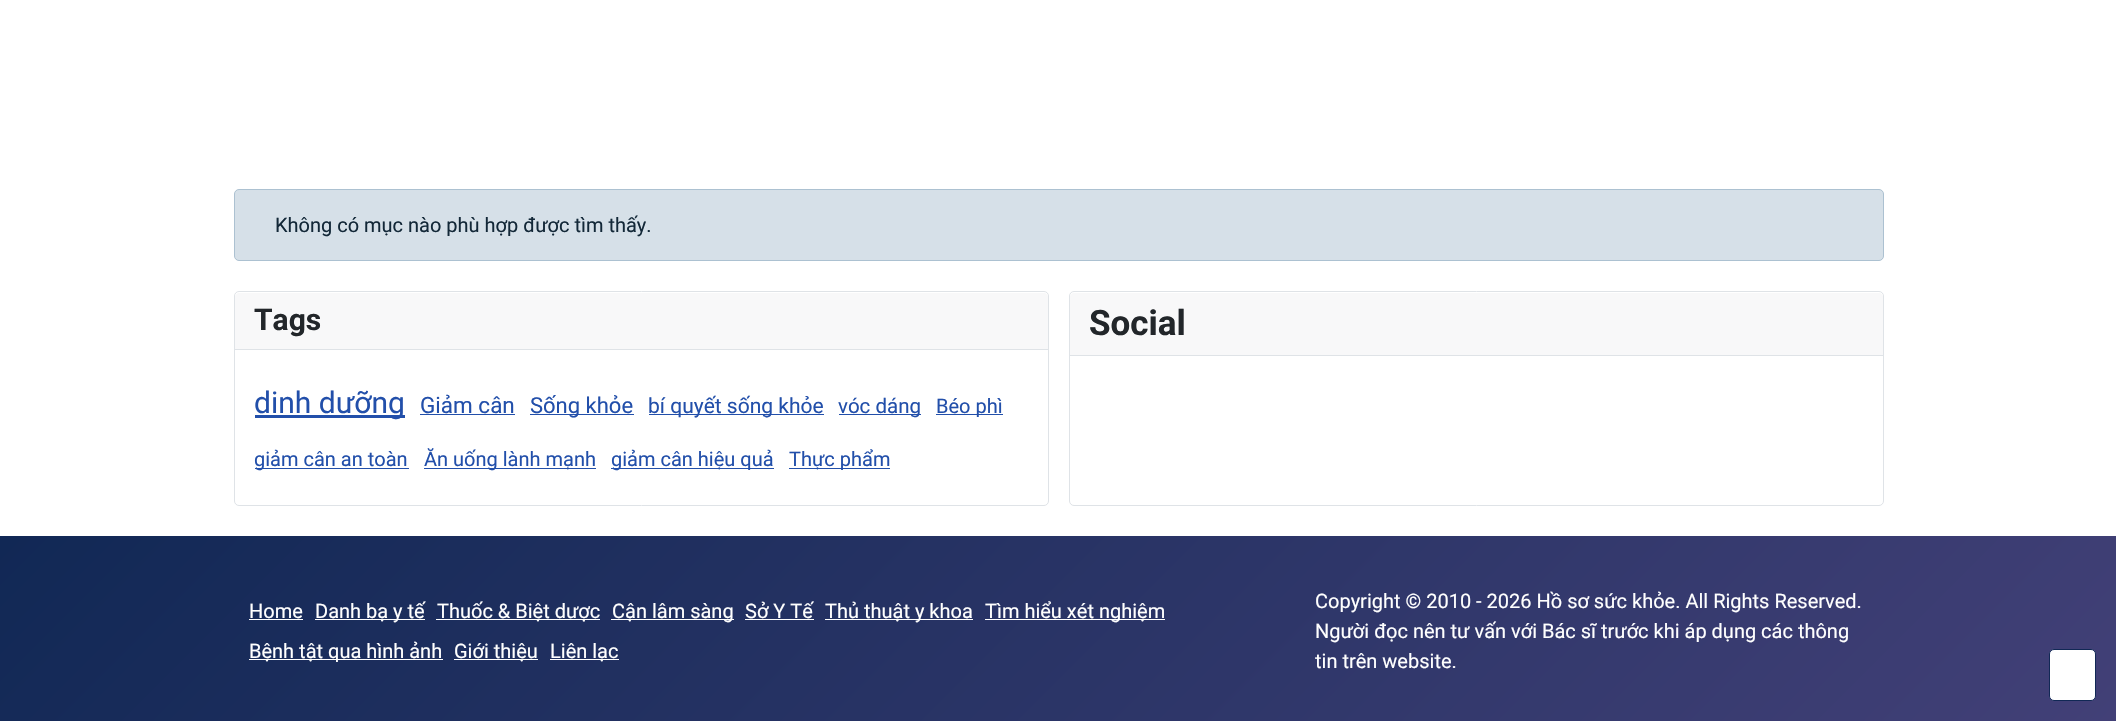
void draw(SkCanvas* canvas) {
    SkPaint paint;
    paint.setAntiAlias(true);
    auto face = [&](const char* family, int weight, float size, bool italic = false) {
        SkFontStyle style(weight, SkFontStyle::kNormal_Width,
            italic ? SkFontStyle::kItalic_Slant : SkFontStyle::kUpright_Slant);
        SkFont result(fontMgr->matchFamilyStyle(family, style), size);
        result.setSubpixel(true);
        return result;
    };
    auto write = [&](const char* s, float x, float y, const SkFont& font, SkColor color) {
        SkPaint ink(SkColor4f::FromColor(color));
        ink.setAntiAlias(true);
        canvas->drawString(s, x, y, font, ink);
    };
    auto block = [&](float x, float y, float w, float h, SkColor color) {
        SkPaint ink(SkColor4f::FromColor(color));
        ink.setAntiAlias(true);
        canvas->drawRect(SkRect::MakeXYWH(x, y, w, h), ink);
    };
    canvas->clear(SK_ColorWHITE);
    paint.setColor(SkColorSetRGB(214, 224, 232));
    canvas->drawRoundRect(SkRect::MakeXYWH(234.5f, 189.5f, 1649, 71), 4.5f, 4.5f, paint);
    paint.setStyle(SkPaint::kStroke_Style);
    paint.setStrokeWidth(1);
    paint.setColor(SkColorSetRGB(172, 193, 209));
    canvas->drawRoundRect(SkRect::MakeXYWH(234.5f, 189.5f, 1649, 71), 4.5f, 4.5f, paint);
    auto kFont1 = face("Roboto", 400, 20);
    write("Không có mục nào phù hợp được tìm thấy.", 275, 232, kFont1, SkColorSetRGB(19, 40, 56));
    paint.setColor(SkColorSetRGB(223, 227, 231));
    canvas->drawRoundRect(SkRect::MakeXYWH(234.5f, 291.5f, 814, 214), 4.5f, 4.5f, paint);
    paint.setStyle(SkPaint::kFill_Style);
    paint.setColor(SkColorSetRGB(248, 248, 249));
    canvas->drawPath(SkPathBuilder().moveTo(239, 293).lineTo(1044, 293).cubicTo(1046, 293, 1048, 295, 1048, 297).lineTo(1048, 350).lineTo(235, 350).lineTo(235, 297).cubicTo(235, 295, 237, 293, 239, 293).close().detach(), paint);
    block(235, 349, 813, 1, SkColorSetRGB(223, 227, 231));
    auto kFont2 = face("Roboto", 700, 30);
    write("Tags", 254, 330, kFont2, SkColorSetRGB(34, 38, 42));
    block(255, 415, 150, 3, SkColorSetRGB(34, 79, 170));
    auto kFont3 = face("Roboto", 400, 30);
    write("dinh dưỡng", 254, 413, kFont3, SkColorSetRGB(34, 79, 170));
    auto kFont4 = face("Roboto", 400, 22.5f);
    write("Giảm cân", 420, 413, kFont4, SkColorSetRGB(34, 79, 170));
    block(420, 414, 95, 1, SkColorSetRGB(34, 79, 170));
    block(530, 414, 104, 1, SkColorSetRGB(34, 79, 170));
    auto kFont5 = face("Roboto", 400, 22);
    write("Sống khỏe", 530, 413, kFont5, SkColorSetRGB(34, 79, 170));
    block(649, 414, 175, 1, SkColorSetRGB(34, 79, 170));
    auto kFont6 = face("Roboto", 400, 21);
    write("bí quyết sống khỏe", 648, 413, kFont6, SkColorSetRGB(34, 79, 170));
    block(839, 414, 82, 1, SkColorSetRGB(34, 79, 170));
    auto kFont7 = face("Roboto", 400, 20.5f);
    write("vóc dáng", 838, 413, kFont7, SkColorSetRGB(34, 79, 170));
    block(936, 414, 67, 1, SkColorSetRGB(34, 79, 170));
    write("Béo phì", 936, 413, kFont1, SkColorSetRGB(34, 79, 170));
    block(255, 468, 154, 1, SkColorSetRGB(34, 79, 170));
    write("giảm cân an toàn", 254, 466, kFont1, SkColorSetRGB(34, 79, 170));
    block(424, 468, 172, 1, SkColorSetRGB(34, 79, 170));
    write("Ăn uống lành mạnh", 424, 466, kFont1, SkColorSetRGB(34, 79, 170));
    block(611, 468, 163, 1, SkColorSetRGB(34, 79, 170));
    write("giảm cân hiệu quả", 611, 466, kFont1, SkColorSetRGB(34, 79, 170));
    block(789, 468, 101, 1, SkColorSetRGB(34, 79, 170));
    write("Thực phẩm", 789, 466, kFont1, SkColorSetRGB(34, 79, 170));
    paint.setStyle(SkPaint::kStroke_Style);
    paint.setColor(SkColorSetRGB(223, 227, 231));
    canvas->drawRoundRect(SkRect::MakeXYWH(1069.5f, 291.5f, 814, 214), 4.5f, 4.5f, paint);
    paint.setStyle(SkPaint::kFill_Style);
    paint.setColor(SkColorSetRGB(248, 248, 249));
    canvas->drawPath(SkPathBuilder().moveTo(1074, 293).lineTo(1879, 293).cubicTo(1881, 293, 1883, 295, 1883, 297).lineTo(1883, 356).lineTo(1070, 356).lineTo(1070, 297).cubicTo(1070, 295, 1072, 293, 1074, 293).close().detach(), paint);
    block(1070, 355, 813, 1, SkColorSetRGB(223, 227, 231));
    auto kFont8 = face("Roboto", 700, 35);
    write("Social", 1089, 335, kFont8, SkColorSetRGB(34, 38, 42));
    {
        const SkColor colors[] = {SkColorSetRGB(17, 40, 85), SkColorSetRGB(66, 64, 119)};
        const float stops[] = {0, 1};
        const SkPoint ends[] = {{482, 55}, {1635, 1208}};
        paint.setShader(SkGradientShader::MakeLinear(ends, colors, stops, 2, SkTileMode::kClamp));
        paint.setAlpha(255);
    }
    canvas->drawRect(SkRect::MakeXYWH(0, 536, 2116, 185), paint);
    write("Home", 249, 618, kFont1, SK_ColorWHITE);
    block(249, 619, 54, 1, SK_ColorWHITE);
    block(315, 619, 110, 1, SK_ColorWHITE);
    write("Danh bạ y tế", 315, 618, kFont1, SK_ColorWHITE);
    block(436, 619, 164, 1, SK_ColorWHITE);
    write("Thuốc & Biệt dược", 437, 618, kFont1, SK_ColorWHITE);
    block(611, 619, 123, 1, SK_ColorWHITE);
    write("Cận lâm sàng", 612, 618, kFont1, SK_ColorWHITE);
    write("Sở Y Tế", 745, 618, kFont1, SK_ColorWHITE);
    block(745, 619, 69, 1, SK_ColorWHITE);
    block(825, 619, 148, 1, SK_ColorWHITE);
    write("Thủ thuật y khoa", 825, 618, kFont1, SK_ColorWHITE);
    block(985, 619, 180, 1, SK_ColorWHITE);
    write("Tìm hiểu xét nghiệm", 985, 618, kFont1, SK_ColorWHITE);
    block(249, 659, 194, 1, SK_ColorWHITE);
    write("Bệnh tật qua hình ảnh", 249, 658, kFont1, SK_ColorWHITE);
    block(454, 659, 84, 1, SK_ColorWHITE);
    write("Giới thiệu", 454, 658, kFont1, SK_ColorWHITE);
    block(550, 659, 69, 1, SK_ColorWHITE);
    write("Liên lạc", 550, 658, kFont1, SK_ColorWHITE);
    write("Copyright © 2010 - 2026 Hồ sơ sức khỏe. All Rights Reserved.", 1315, 608, kFont1, SK_ColorWHITE);
    write("Người đọc nên tư vấn với Bác sĩ trước khi áp dụng các thông", 1315, 638, kFont1, SK_ColorWHITE);
    write("tin trên website.", 1315, 668, kFont1, SK_ColorWHITE);
    paint.setShader(nullptr);
    paint.setColor(SK_ColorWHITE);
    canvas->drawRoundRect(SkRect::MakeXYWH(2049.5f, 649.5f, 46, 51), 4.5f, 4.5f, paint);
    paint.setStyle(SkPaint::kStroke_Style);
    paint.setColor(SkColorSetRGB(17, 40, 85));
    canvas->drawRoundRect(SkRect::MakeXYWH(2049.5f, 649.5f, 46, 51), 4.5f, 4.5f, paint);
}
